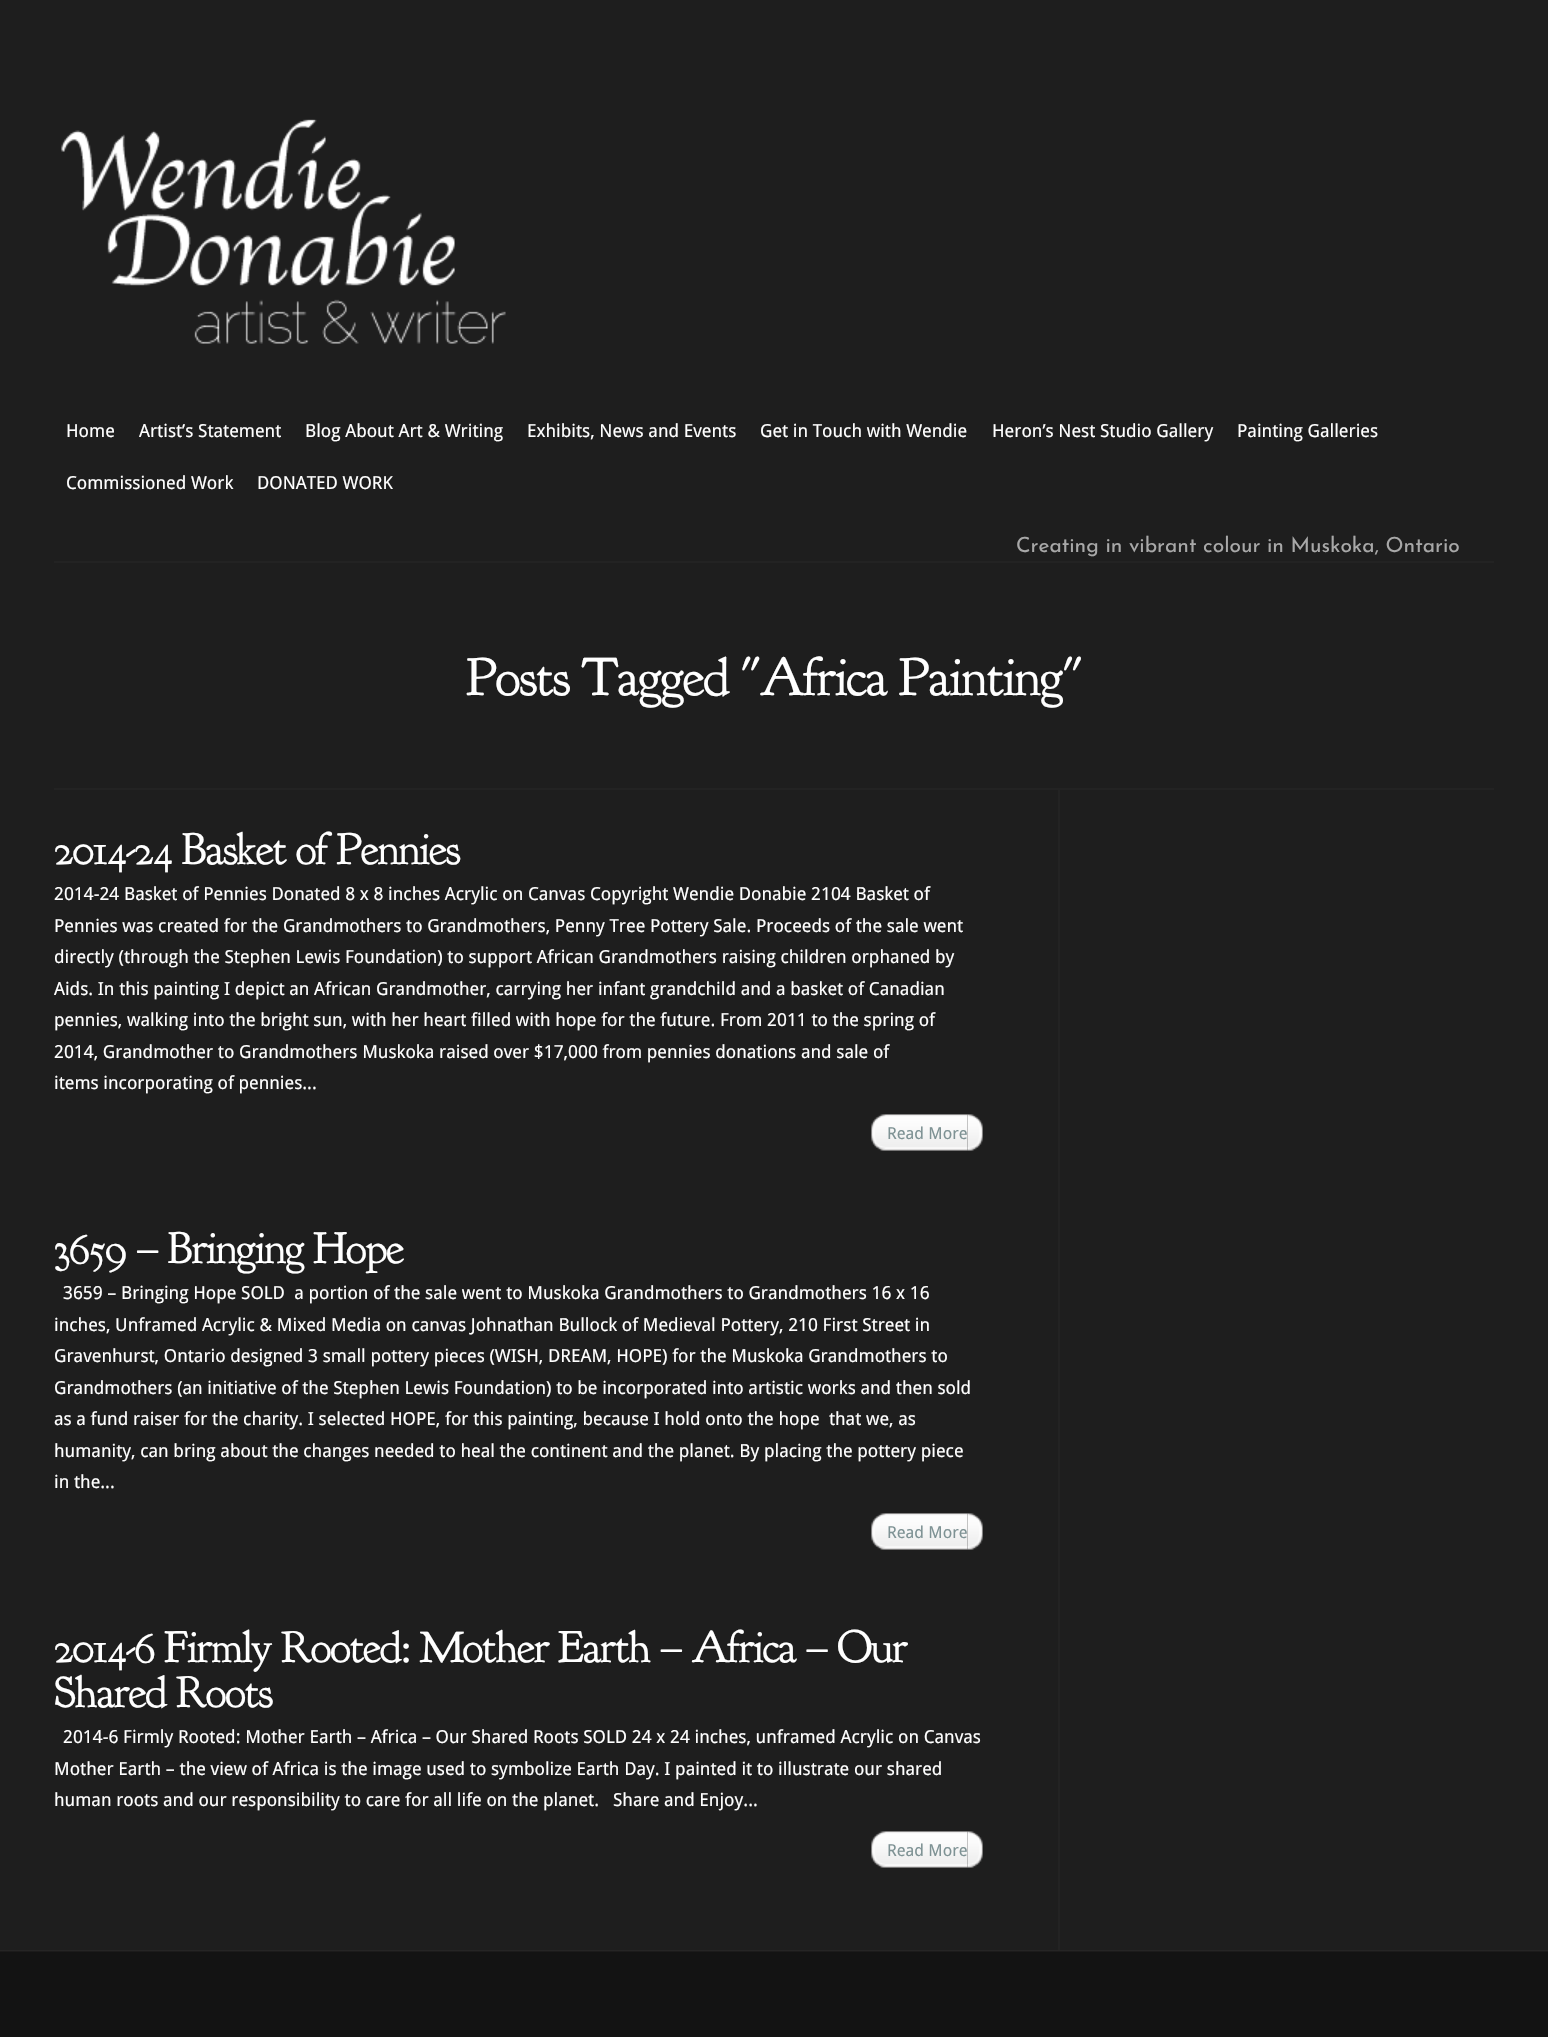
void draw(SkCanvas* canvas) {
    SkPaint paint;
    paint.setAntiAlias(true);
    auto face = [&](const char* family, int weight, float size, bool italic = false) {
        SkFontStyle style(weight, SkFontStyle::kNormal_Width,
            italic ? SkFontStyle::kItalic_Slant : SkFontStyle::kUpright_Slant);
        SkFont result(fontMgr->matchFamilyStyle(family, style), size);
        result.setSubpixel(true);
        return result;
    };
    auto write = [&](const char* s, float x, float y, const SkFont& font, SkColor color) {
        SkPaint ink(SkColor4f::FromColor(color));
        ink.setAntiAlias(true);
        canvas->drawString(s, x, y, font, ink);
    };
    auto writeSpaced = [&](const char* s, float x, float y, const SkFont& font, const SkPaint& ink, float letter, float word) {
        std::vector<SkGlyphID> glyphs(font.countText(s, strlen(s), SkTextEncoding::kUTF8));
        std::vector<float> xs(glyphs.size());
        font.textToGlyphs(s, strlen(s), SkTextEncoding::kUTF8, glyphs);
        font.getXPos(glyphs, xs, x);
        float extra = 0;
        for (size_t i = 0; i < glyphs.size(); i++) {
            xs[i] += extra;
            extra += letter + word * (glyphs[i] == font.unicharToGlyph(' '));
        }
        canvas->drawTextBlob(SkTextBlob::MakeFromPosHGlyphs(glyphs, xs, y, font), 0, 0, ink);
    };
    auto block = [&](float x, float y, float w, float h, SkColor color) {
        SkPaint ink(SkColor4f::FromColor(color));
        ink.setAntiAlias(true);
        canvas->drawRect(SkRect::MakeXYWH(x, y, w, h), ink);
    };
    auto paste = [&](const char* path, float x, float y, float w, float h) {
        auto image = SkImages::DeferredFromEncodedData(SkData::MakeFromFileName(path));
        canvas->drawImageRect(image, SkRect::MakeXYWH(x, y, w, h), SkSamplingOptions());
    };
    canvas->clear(SkColorSetRGB(30, 30, 30));
    block(54, 561, 1440, 2, SkColorSetRGB(35, 35, 35));
    paste("pic1.png", 61, 119, 445, 225);
    auto kFont1 = face("Droid Sans", 400, 18);
    write("Home", 66, 437, kFont1, SK_ColorWHITE);
    write("Artist’s Statement", 139, 437, kFont1, SK_ColorWHITE);
    write("Blog About Art & Writing", 305, 437, kFont1, SK_ColorWHITE);
    write("Exhibits, News and Events", 527, 437, kFont1, SK_ColorWHITE);
    write("Get in Touch with Wendie", 760, 437, kFont1, SK_ColorWHITE);
    write("Heron’s Nest Studio Gallery", 992, 437, kFont1, SK_ColorWHITE);
    write("Painting Galleries", 1237, 437, kFont1, SK_ColorWHITE);
    write("Commissioned Work", 66, 489, kFont1, SK_ColorWHITE);
    write("DONATED WORK", 257, 489, kFont1, SK_ColorWHITE);
    auto kFont2 = face("Josefin Sans", 400, 21);
    write("Creating in vibrant colour in Muskoka, Ontario", 1016, 552, kFont2, SkColorSetRGB(168, 168, 168));
    auto kFont3 = face("Goudy Bookletter 1911", 400, 54);
    paint.setColor(SK_ColorWHITE);
    writeSpaced("Posts Tagged \"Africa Painting\"", 466, 695, kFont3, paint, -1.5f, 0);
    block(54, 788, 1005, 2, SkColorSetRGB(35, 35, 35));
    block(1058, 788, 2, 1162, SkColorSetRGB(35, 35, 35));
    block(1059, 788, 435, 2, SkColorSetRGB(35, 35, 35));
    auto kFont4 = face("Goudy Bookletter 1911", 400, 45);
    writeSpaced("2014-24 Basket of Pennies", 54, 864, kFont4, paint, -1.5f, 0);
    write("2014-24 Basket of Pennies Donated 8 x 8 inches Acrylic on Canvas Copyright Wendie Donabie 2104 Basket of", 54, 900, kFont1, SK_ColorWHITE);
    write("Pennies was created for the Grandmothers to Grandmothers, Penny Tree Pottery Sale. Proceeds of the sale went", 54, 932, kFont1, SK_ColorWHITE);
    write("directly (through the Stephen Lewis Foundation) to support African Grandmothers raising children orphaned by", 54, 963, kFont1, SK_ColorWHITE);
    write("Aids. In this painting I depict an African Grandmother, carrying her infant grandchild and a basket of Canadian", 54, 995, kFont1, SK_ColorWHITE);
    write("pennies, walking into the bright sun, with her heart filled with hope for the future. From 2011 to the spring of", 54, 1026, kFont1, SK_ColorWHITE);
    write("2014, Grandmother to Grandmothers Muskoka raised over $17,000 from pennies donations and sale of", 54, 1058, kFont1, SK_ColorWHITE);
    write("items incorporating of pennies...", 54, 1089, kFont1, SK_ColorWHITE);
    paste("pic2.png", 967, 1114, 16, 37);
    paste("pic3.png", 871, 1114, 97, 37);
    auto kFont5 = face("Droid Sans", 400, 16.5f);
    write("Read More", 887, 1139, kFont5, SkColorSetRGB(126, 146, 148));
    writeSpaced("3659 – Bringing Hope", 54, 1263, kFont4, paint, -1.5f, 0);
    write("3659 – Bringing Hope SOLD  a portion of the sale went to Muskoka Grandmothers to Grandmothers 16 x 16", 63, 1299, kFont1, SK_ColorWHITE);
    write("inches, Unframed Acrylic & Mixed Media on canvas Johnathan Bullock of Medieval Pottery, 210 First Street in", 54, 1331, kFont1, SK_ColorWHITE);
    write("Gravenhurst, Ontario designed 3 small pottery pieces (WISH, DREAM, HOPE) for the Muskoka Grandmothers to", 54, 1362, kFont1, SK_ColorWHITE);
    write("Grandmothers (an initiative of the Stephen Lewis Foundation) to be incorporated into artistic works and then sold", 54, 1394, kFont1, SK_ColorWHITE);
    write("as a fund raiser for the charity. I selected HOPE, for this painting, because I hold onto the hope  that we, as", 54, 1425, kFont1, SK_ColorWHITE);
    write("humanity, can bring about the changes needed to heal the continent and the planet. By placing the pottery piece", 54, 1457, kFont1, SK_ColorWHITE);
    write("in the...", 54, 1488, kFont1, SK_ColorWHITE);
    paste("pic2.png", 967, 1513, 16, 37);
    paste("pic3.png", 871, 1513, 97, 37);
    write("Read More", 887, 1538, kFont5, SkColorSetRGB(126, 146, 148));
    writeSpaced("2014-6 Firmly Rooted: Mother Earth – Africa – Our", 54, 1662, kFont4, paint, -1.5f, 0);
    writeSpaced("Shared Roots", 54, 1707, kFont4, paint, -1.5f, 0);
    write("2014-6 Firmly Rooted: Mother Earth – Africa – Our Shared Roots SOLD 24 x 24 inches, unframed Acrylic on Canvas", 63, 1743, kFont1, SK_ColorWHITE);
    write("Mother Earth – the view of Africa is the image used to symbolize Earth Day. I painted it to illustrate our shared", 54, 1775, kFont1, SK_ColorWHITE);
    write("human roots and our responsibility to care for all life on the planet.   Share and Enjoy...", 54, 1806, kFont1, SK_ColorWHITE);
    paste("pic2.png", 967, 1831, 16, 37);
    paste("pic3.png", 871, 1831, 97, 37);
    write("Read More", 887, 1856, kFont5, SkColorSetRGB(126, 146, 148));
    block(0, 1950, 1548, 87, SkColorSetRGB(19, 19, 19));
    paste("pic4.png", 0, 1950, 1548, 2);
}
